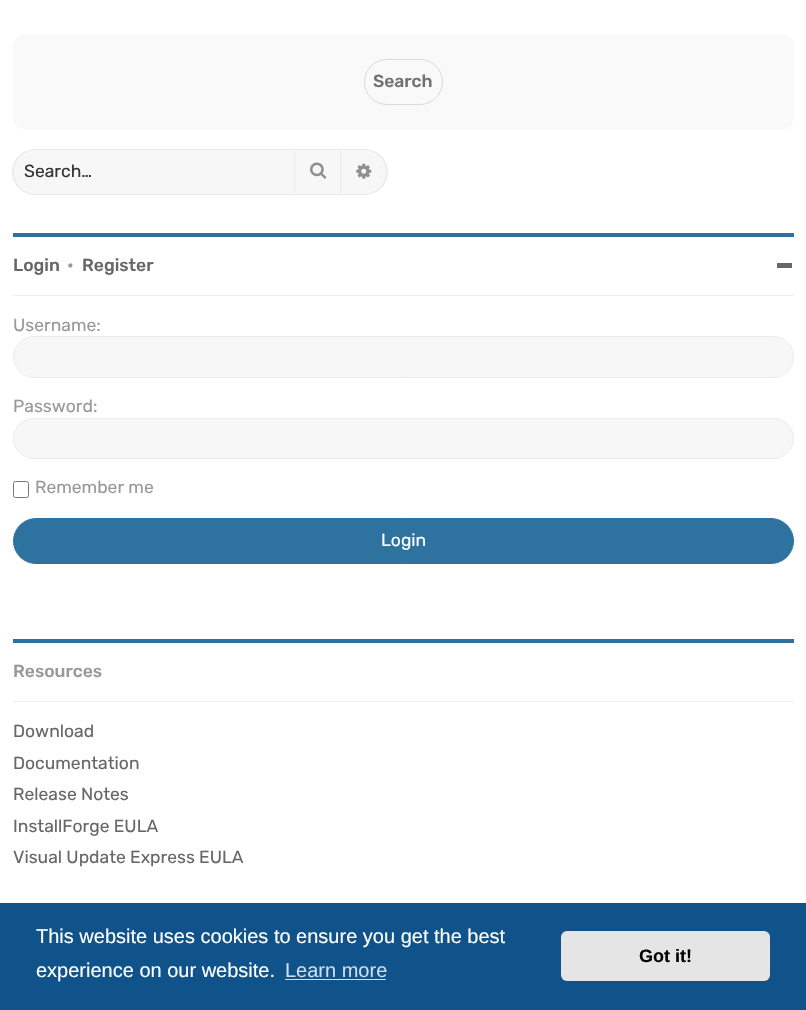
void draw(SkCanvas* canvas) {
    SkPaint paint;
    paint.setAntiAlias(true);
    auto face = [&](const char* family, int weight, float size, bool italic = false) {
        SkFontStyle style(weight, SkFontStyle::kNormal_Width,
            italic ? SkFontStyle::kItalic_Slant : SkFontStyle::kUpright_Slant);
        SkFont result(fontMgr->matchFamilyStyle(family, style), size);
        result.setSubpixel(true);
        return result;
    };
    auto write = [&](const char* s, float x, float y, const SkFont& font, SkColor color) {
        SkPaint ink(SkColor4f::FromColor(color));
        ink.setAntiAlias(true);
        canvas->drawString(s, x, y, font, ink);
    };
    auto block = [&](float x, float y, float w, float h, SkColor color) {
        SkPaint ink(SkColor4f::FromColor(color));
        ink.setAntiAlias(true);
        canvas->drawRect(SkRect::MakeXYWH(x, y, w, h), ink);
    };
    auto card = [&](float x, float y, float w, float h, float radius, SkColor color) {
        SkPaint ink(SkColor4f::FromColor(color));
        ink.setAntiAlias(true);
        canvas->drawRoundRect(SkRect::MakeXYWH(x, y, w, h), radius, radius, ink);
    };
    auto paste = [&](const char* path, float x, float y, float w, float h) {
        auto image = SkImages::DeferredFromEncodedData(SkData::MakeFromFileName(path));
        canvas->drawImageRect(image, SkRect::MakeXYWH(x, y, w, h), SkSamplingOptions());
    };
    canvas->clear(SK_ColorWHITE);
    card(13, 34, 781, 96, 13, SkColorSetRGB(249, 249, 249));
    paint.setStyle(SkPaint::kStroke_Style);
    paint.setStrokeWidth(1);
    paint.setColor(SkColorSetRGB(217, 217, 217));
    canvas->drawRoundRect(SkRect::MakeXYWH(364.5f, 59.5f, 78, 45), 22.5f, 22.5f, paint);
    auto kFont1 = face("Rubik", 500, 17.5f);
    write("Search", 373, 87, kFont1, SkColorSetRGB(113, 113, 113));
    paint.setStyle(SkPaint::kFill_Style);
    paint.setColor(SkColorSetRGB(247, 247, 247));
    canvas->drawPath(SkPathBuilder().moveTo(36, 150).lineTo(294, 150).lineTo(294, 194).lineTo(36, 194).cubicTo(24, 194, 14, 184, 14, 172).cubicTo(14, 160, 24, 150, 36, 150).close().detach(), paint);
    paint.setColor(SkColorSetRGB(237, 236, 236));
    canvas->drawPath(SkPathBuilder(SkPathFillType::kEvenOdd).moveTo(36, 149).lineTo(294, 149).lineTo(294, 195).lineTo(36, 195).cubicTo(23, 195, 12, 185, 12, 172).cubicTo(12, 159, 23, 149, 36, 149).close().moveTo(36, 150).lineTo(294, 150).lineTo(294, 194).lineTo(36, 194).cubicTo(24, 194, 14, 184, 14, 172).cubicTo(14, 160, 24, 150, 36, 150).close().detach(), paint);
    auto kFont2 = face("Rubik", 400, 17.5f);
    write("Search…", 24, 177, kFont2, SkColorSetRGB(51, 51, 51));
    paint.setColor(SkColorSetRGB(247, 247, 247));
    canvas->drawRect(SkRect::MakeXYWH(294.5f, 149.5f, 46, 45), paint);
    paint.setStyle(SkPaint::kStroke_Style);
    paint.setColor(SkColorSetRGB(237, 236, 236));
    canvas->drawRect(SkRect::MakeXYWH(294.5f, 149.5f, 46, 45), paint);
    paste("pic1.png", 310, 162, 17, 17);
    paint.setStyle(SkPaint::kFill_Style);
    paint.setColor(SkColorSetRGB(247, 247, 247));
    canvas->drawPath(SkPathBuilder().moveTo(341, 150).lineTo(364, 150).cubicTo(376, 150, 386, 160, 386, 172).cubicTo(386, 184, 376, 194, 364, 194).lineTo(341, 194).close().detach(), paint);
    paint.setColor(SkColorSetRGB(237, 236, 236));
    canvas->drawPath(SkPathBuilder(SkPathFillType::kEvenOdd).moveTo(341, 149).lineTo(364, 149).cubicTo(377, 149, 388, 159, 388, 172).cubicTo(388, 185, 377, 195, 364, 195).lineTo(341, 195).close().moveTo(341, 150).lineTo(364, 150).cubicTo(376, 150, 386, 160, 386, 172).cubicTo(386, 184, 376, 194, 364, 194).lineTo(341, 194).close().detach(), paint);
    paste("pic2.png", 356, 163, 16, 16);
    block(13, 233, 781, 4, SkColorSetRGB(46, 115, 160));
    write("Login", 13, 271, kFont1, SkColorSetRGB(103, 103, 103));
    write("•", 67, 271, kFont1, SkColorSetRGB(153, 153, 153));
    write("Register", 82, 271, kFont1, SkColorSetRGB(103, 103, 103));
    block(777, 263, 15, 5, SkColorSetRGB(103, 103, 103));
    block(13, 295, 781, 1, SkColorSetRGB(236, 240, 241));
    write("Username:", 13, 331, kFont2, SkColorSetRGB(153, 153, 153));
    paint.setColor(SkColorSetRGB(247, 247, 247));
    canvas->drawRoundRect(SkRect::MakeXYWH(13.5f, 336.5f, 780, 41), 20.5f, 20.5f, paint);
    paint.setStyle(SkPaint::kStroke_Style);
    paint.setColor(SkColorSetRGB(237, 236, 236));
    canvas->drawRoundRect(SkRect::MakeXYWH(13.5f, 336.5f, 780, 41), 20.5f, 20.5f, paint);
    write("Password:", 13, 412, kFont2, SkColorSetRGB(153, 153, 153));
    paint.setStyle(SkPaint::kFill_Style);
    paint.setColor(SkColorSetRGB(247, 247, 247));
    canvas->drawRoundRect(SkRect::MakeXYWH(13.5f, 418.5f, 780, 40), 20, 20, paint);
    paint.setStyle(SkPaint::kStroke_Style);
    paint.setColor(SkColorSetRGB(237, 236, 236));
    canvas->drawRoundRect(SkRect::MakeXYWH(13.5f, 418.5f, 780, 40), 20, 20, paint);
    paint.setColor(SkColorSetRGB(118, 118, 118));
    canvas->drawRoundRect(SkRect::MakeXYWH(13.5f, 481.5f, 15, 16), 2, 2, paint);
    write("Remember me", 35, 493, kFont2, SkColorSetRGB(153, 153, 153));
    paint.setStyle(SkPaint::kFill_Style);
    paint.setColor(SkColorSetRGB(46, 115, 160));
    canvas->drawRoundRect(SkRect::MakeXYWH(13.5f, 518.5f, 780, 45), 22.5f, 22.5f, paint);
    paint.setStyle(SkPaint::kStroke_Style);
    canvas->drawRoundRect(SkRect::MakeXYWH(13.5f, 518.5f, 780, 45), 22.5f, 22.5f, paint);
    write("Login", 381, 546, kFont2, SK_ColorWHITE);
    block(13, 639, 781, 4, SkColorSetRGB(46, 115, 160));
    write("Resources", 13, 677, kFont1, SkColorSetRGB(153, 153, 153));
    block(13, 701, 781, 1, SkColorSetRGB(236, 240, 241));
    write("Download", 13, 737, kFont2, SkColorSetRGB(103, 103, 103));
    write("Documentation", 13, 769, kFont2, SkColorSetRGB(103, 103, 103));
    write("Release Notes", 13, 800, kFont2, SkColorSetRGB(103, 103, 103));
    write("InstallForge EULA", 13, 832, kFont2, SkColorSetRGB(103, 103, 103));
    write("Visual Update Express EULA", 13, 863, kFont2, SkColorSetRGB(103, 103, 103));
    block(0, 903, 806, 107, SkColorSetRGB(15, 83, 138));
    auto kFont3 = face("Liberation Sans", 400, 20);
    write("This website uses cookies to ensure you get the best", 36, 943, kFont3, SK_ColorWHITE);
    write("experience on our website.", 36, 977, kFont3, SK_ColorWHITE);
    write("Learn more", 285, 977, kFont3, SkColorSetRGB(207, 221, 232));
    block(285, 979, 101, 1, SkColorSetRGB(207, 221, 232));
    card(561, 931, 209, 50, 6, SkColorSetRGB(229, 229, 229));
    auto kFont4 = face("Liberation Sans", 700, 18);
    write("Got it!", 639, 962, kFont4, SK_ColorBLACK);
}
